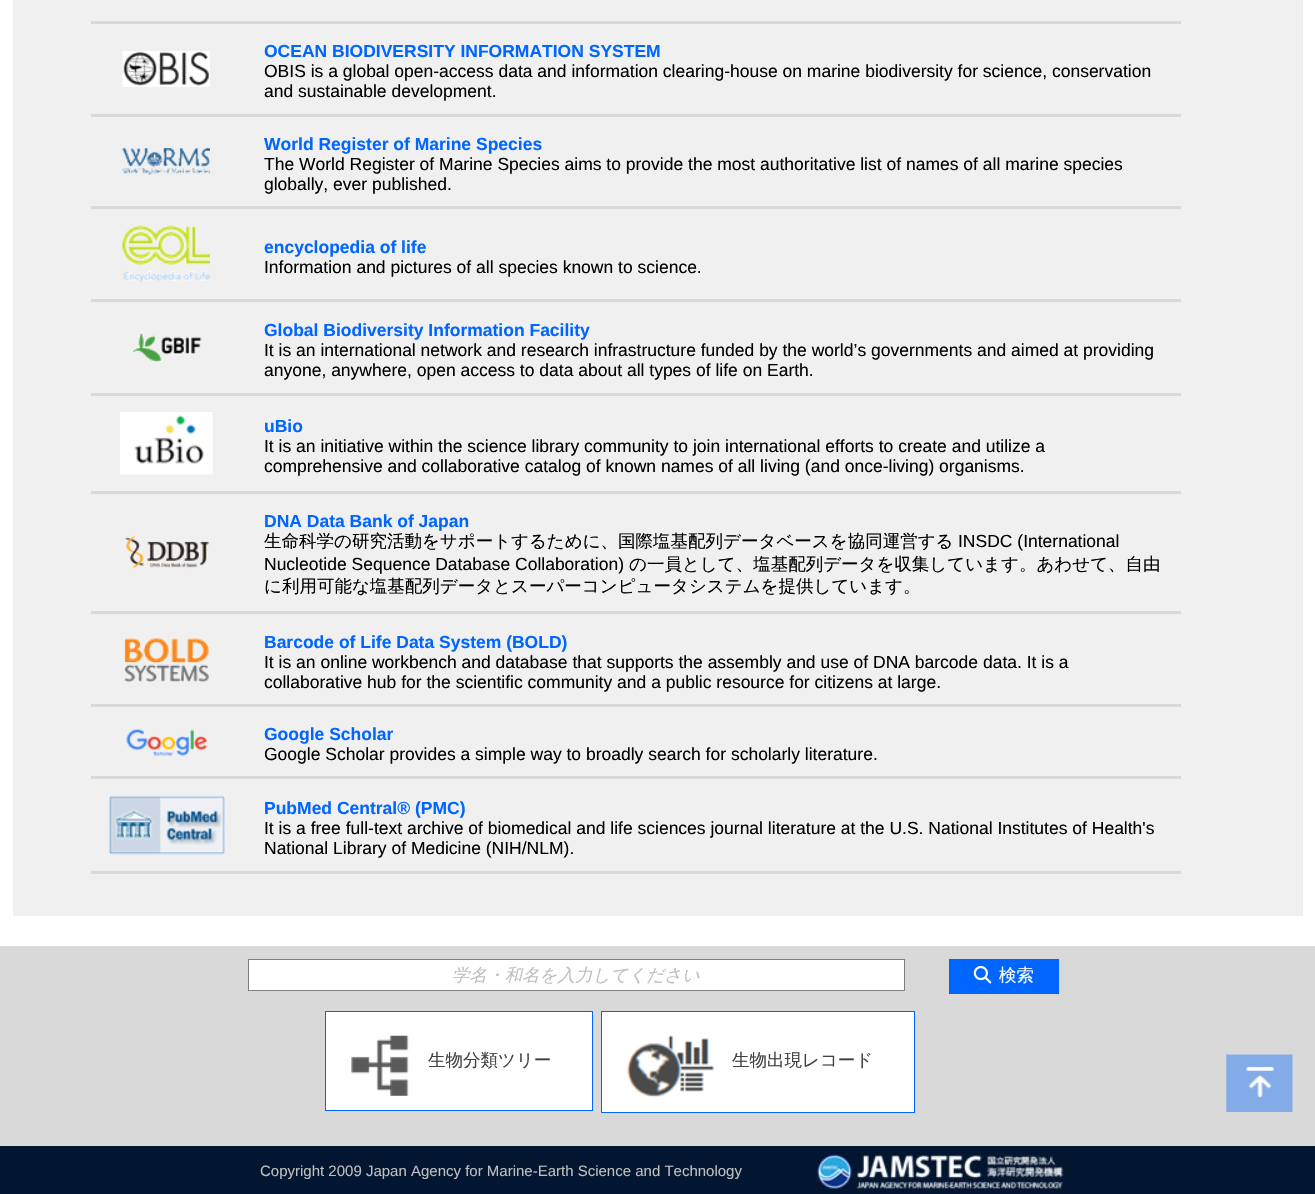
void draw(SkCanvas* canvas) {
    SkPaint paint;
    paint.setAntiAlias(true);
    auto face = [&](const char* family, int weight, float size, bool italic = false) {
        SkFontStyle style(weight, SkFontStyle::kNormal_Width,
            italic ? SkFontStyle::kItalic_Slant : SkFontStyle::kUpright_Slant);
        SkFont result(fontMgr->matchFamilyStyle(family, style), size);
        result.setSubpixel(true);
        return result;
    };
    auto write = [&](const char* s, float x, float y, const SkFont& font, SkColor color) {
        SkPaint ink(SkColor4f::FromColor(color));
        ink.setAntiAlias(true);
        canvas->drawString(s, x, y, font, ink);
    };
    auto block = [&](float x, float y, float w, float h, SkColor color) {
        SkPaint ink(SkColor4f::FromColor(color));
        ink.setAntiAlias(true);
        canvas->drawRect(SkRect::MakeXYWH(x, y, w, h), ink);
    };
    auto paste = [&](const char* path, float x, float y, float w, float h) {
        auto image = SkImages::DeferredFromEncodedData(SkData::MakeFromFileName(path));
        canvas->drawImageRect(image, SkRect::MakeXYWH(x, y, w, h), SkSamplingOptions());
    };
    canvas->clear(SK_ColorWHITE);
    block(13, 0, 1290, 916, SkColorSetRGB(240, 240, 240));
    block(91, 21, 1090, 3, SkColorSetRGB(217, 217, 217));
    block(91, 114, 1090, 3, SkColorSetRGB(217, 217, 217));
    paste("pic1.png", 122, 51, 88, 36);
    auto kFont1 = face("Liberation Sans", 700, 17.5f);
    write("OCEAN BIODIVERSITY INFORMATION SYSTEM", 264, 57, kFont1, SkColorSetRGB(0, 102, 255));
    auto kFont2 = face("Liberation Sans", 400, 17.5f);
    write("OBIS is a global open-access data and information clearing-house on marine biodiversity for science, conservation", 264, 77, kFont2, SK_ColorBLACK);
    write("and sustainable development.", 264, 97, kFont2, SK_ColorBLACK);
    block(91, 206, 1090, 3, SkColorSetRGB(217, 217, 217));
    paste("pic2.png", 122, 148, 88, 27);
    write("World Register of Marine Species", 264, 150, kFont1, SkColorSetRGB(0, 102, 255));
    write("The World Register of Marine Species aims to provide the most authoritative list of names of all marine species", 264, 170, kFont2, SK_ColorBLACK);
    write("globally, ever published.", 264, 190, kFont2, SK_ColorBLACK);
    block(91, 299, 1090, 3, SkColorSetRGB(217, 217, 217));
    paste("pic3.png", 122, 225, 88, 57);
    write("encyclopedia of life", 264, 253, kFont1, SkColorSetRGB(0, 102, 255));
    write("Information and pictures of all species known to science.", 264, 273, kFont2, SK_ColorBLACK);
    block(91, 393, 1090, 3, SkColorSetRGB(217, 217, 217));
    paste("pic4.png", 131, 332, 71, 30);
    write("Global Biodiversity Information Facility", 264, 336, kFont1, SkColorSetRGB(0, 102, 255));
    write("It is an international network and research infrastructure funded by the world’s governments and aimed at providing", 264, 356, kFont2, SK_ColorBLACK);
    write("anyone, anywhere, open access to data about all types of life on Earth.", 264, 376, kFont2, SK_ColorBLACK);
    block(91, 491, 1090, 3, SkColorSetRGB(217, 217, 217));
    paste("pic5.png", 120, 412, 93, 63);
    write("uBio", 264, 432, kFont1, SkColorSetRGB(0, 102, 255));
    write("It is an initiative within the science library community to join international efforts to create and utilize a", 264, 452, kFont2, SK_ColorBLACK);
    write("comprehensive and collaborative catalog of known names of all living (and once-living) organisms.", 264, 472, kFont2, SK_ColorBLACK);
    block(91, 611, 1090, 3, SkColorSetRGB(217, 217, 217));
    paste("pic6.png", 125, 535, 84, 34);
    write("DNA Data Bank of Japan", 264, 527, kFont1, SkColorSetRGB(0, 102, 255));
    auto kFont3 = face("WenQuanYi Zen Hei", 500, 17.5f);
    write("生命科学の研究活動をサポートするために、国際塩基配列データベースを協同運営する", 264, 547, kFont3, SK_ColorBLACK);
    write("INSDC (International", 958, 547, kFont2, SK_ColorBLACK);
    write("Nucleotide Sequence Database Collaboration)", 264, 570, kFont2, SK_ColorBLACK);
    write("の一員として、塩基配列データを収集しています。あわせて、自由", 629, 570, kFont3, SK_ColorBLACK);
    write("に利用可能な塩基配列データとスーパーコンピュータシステムを提供しています。", 264, 592, kFont3, SK_ColorBLACK);
    block(91, 704, 1090, 3, SkColorSetRGB(217, 217, 217));
    paste("pic7.png", 123, 637, 86, 45);
    write("Barcode of Life Data System (BOLD)", 264, 648, kFont1, SkColorSetRGB(0, 102, 255));
    write("It is an online workbench and database that supports the assembly and use of DNA barcode data. It is a", 264, 668, kFont2, SK_ColorBLACK);
    write("collaborative hub for the scientific community and a public resource for citizens at large.", 264, 688, kFont2, SK_ColorBLACK);
    block(91, 776, 1090, 3, SkColorSetRGB(217, 217, 217));
    paste("pic8.png", 126, 728, 82, 28);
    write("Google Scholar", 264, 740, kFont1, SkColorSetRGB(0, 102, 255));
    write("Google Scholar provides a simple way to broadly search for scholarly literature.", 264, 760, kFont2, SK_ColorBLACK);
    block(91, 871, 1090, 3, SkColorSetRGB(217, 217, 217));
    paste("pic9.png", 108, 795, 117, 60);
    write("PubMed Central® (PMC)", 264, 814, kFont1, SkColorSetRGB(0, 102, 255));
    write("It is a free full-text archive of biomedical and life sciences journal literature at the U.S. National Institutes of Health's", 264, 834, kFont2, SK_ColorBLACK);
    write("National Library of Medicine (NIH/NLM).", 264, 854, kFont2, SK_ColorBLACK);
    block(0, 946, 1315, 200, SkColorSetRGB(217, 217, 217));
    paint.setColor(SK_ColorWHITE);
    canvas->drawRect(SkRect::MakeXYWH(248.5f, 959.5f, 656, 31), paint);
    paint.setStyle(SkPaint::kStroke_Style);
    paint.setStrokeWidth(1);
    paint.setColor(SkColorSetRGB(127, 127, 127));
    canvas->drawRect(SkRect::MakeXYWH(248.5f, 959.5f, 656, 31), paint);
    auto kFont4 = face("WenQuanYi Zen Hei", 500, 17.5f, true);
    write("学名・和名を入力してください", 452, 981, kFont4, SkColorSetRGB(191, 191, 191));
    block(949, 959, 110, 35, SkColorSetRGB(0, 102, 255));
    paste("pic10.png", 973, 965, 19, 19);
    write("検索", 999, 981, kFont3, SK_ColorWHITE);
    paint.setStyle(SkPaint::kFill_Style);
    paint.setColor(SK_ColorWHITE);
    canvas->drawRect(SkRect::MakeXYWH(325.5f, 1011.5f, 267, 99), paint);
    paint.setStyle(SkPaint::kStroke_Style);
    paint.setColor(SkColorSetRGB(0, 102, 255));
    canvas->drawRect(SkRect::MakeXYWH(325.5f, 1011.5f, 267, 99), paint);
    paste("pic11.png", 351, 1035, 58, 61);
    write("生物分類ツリー", 428, 1066, kFont3, SkColorSetRGB(64, 64, 64));
    paint.setStyle(SkPaint::kFill_Style);
    paint.setColor(SK_ColorWHITE);
    canvas->drawRect(SkRect::MakeXYWH(601.5f, 1011.5f, 313, 101), paint);
    paint.setStyle(SkPaint::kStroke_Style);
    paint.setColor(SkColorSetRGB(0, 102, 255));
    canvas->drawRect(SkRect::MakeXYWH(601.5f, 1011.5f, 313, 101), paint);
    paste("pic12.png", 627, 1035, 87, 62);
    write("生物出現レコード", 732, 1066, kFont3, SkColorSetRGB(64, 64, 64));
    paste("pic13.png", 1226, 1054, 67, 58);
    block(0, 1146, 1315, 48, SkColorSetRGB(2, 22, 49));
    auto kFont5 = face("Liberation Sans", 400, 15);
    write("Copyright 2009 Japan Agency for Marine-Earth Science and Technology", 260, 1176, kFont5, SkColorSetRGB(191, 191, 191));
    paste("pic14.png", 816, 1153, 248, 38);
}
